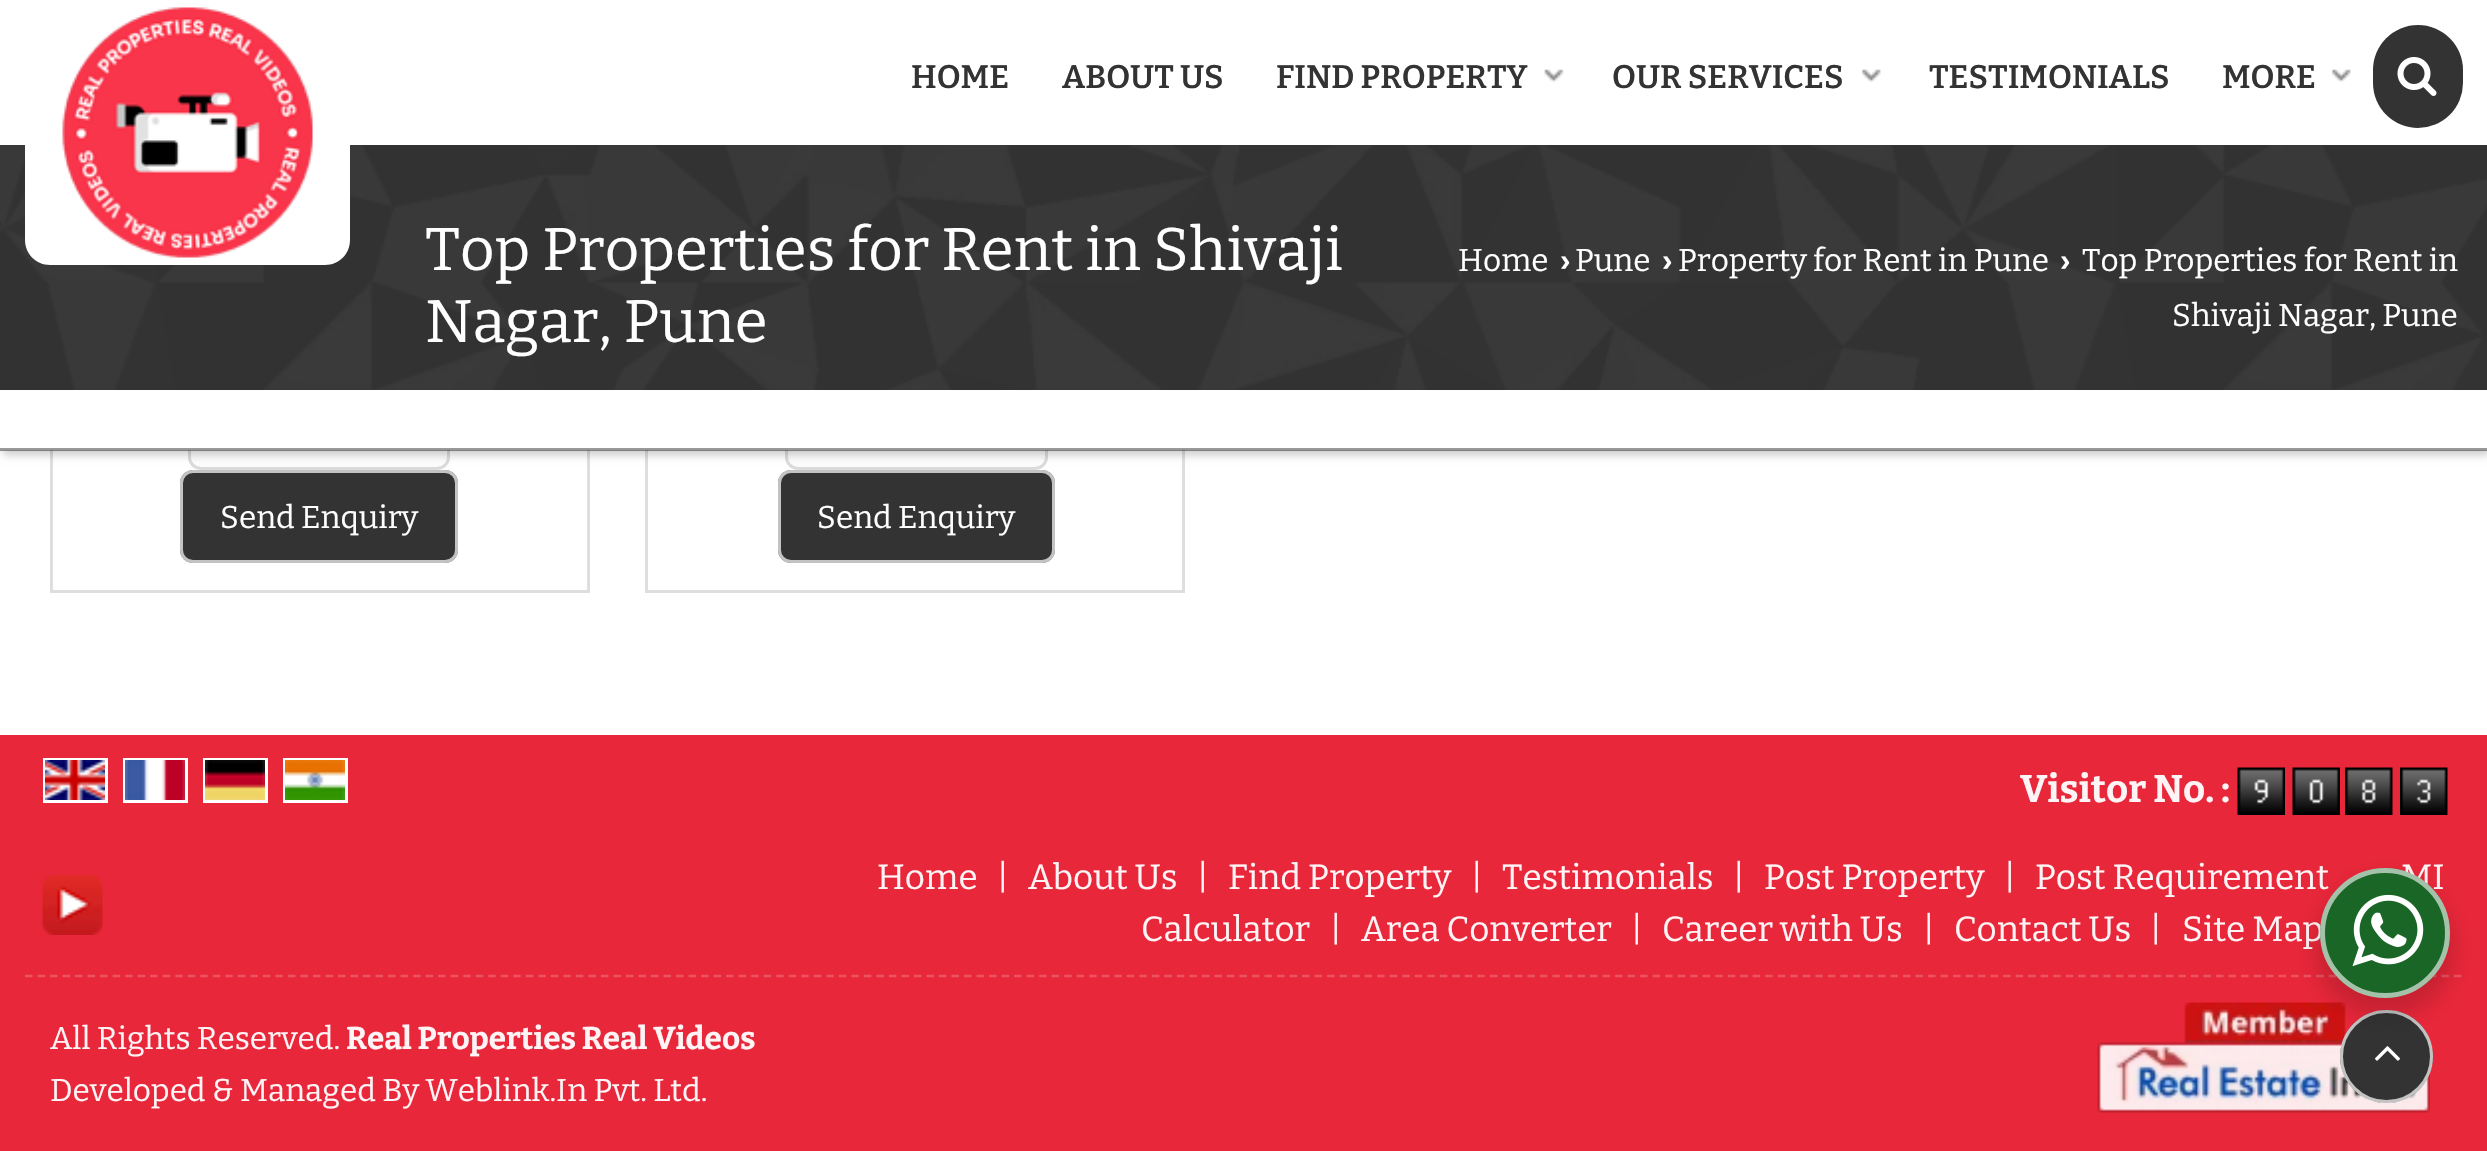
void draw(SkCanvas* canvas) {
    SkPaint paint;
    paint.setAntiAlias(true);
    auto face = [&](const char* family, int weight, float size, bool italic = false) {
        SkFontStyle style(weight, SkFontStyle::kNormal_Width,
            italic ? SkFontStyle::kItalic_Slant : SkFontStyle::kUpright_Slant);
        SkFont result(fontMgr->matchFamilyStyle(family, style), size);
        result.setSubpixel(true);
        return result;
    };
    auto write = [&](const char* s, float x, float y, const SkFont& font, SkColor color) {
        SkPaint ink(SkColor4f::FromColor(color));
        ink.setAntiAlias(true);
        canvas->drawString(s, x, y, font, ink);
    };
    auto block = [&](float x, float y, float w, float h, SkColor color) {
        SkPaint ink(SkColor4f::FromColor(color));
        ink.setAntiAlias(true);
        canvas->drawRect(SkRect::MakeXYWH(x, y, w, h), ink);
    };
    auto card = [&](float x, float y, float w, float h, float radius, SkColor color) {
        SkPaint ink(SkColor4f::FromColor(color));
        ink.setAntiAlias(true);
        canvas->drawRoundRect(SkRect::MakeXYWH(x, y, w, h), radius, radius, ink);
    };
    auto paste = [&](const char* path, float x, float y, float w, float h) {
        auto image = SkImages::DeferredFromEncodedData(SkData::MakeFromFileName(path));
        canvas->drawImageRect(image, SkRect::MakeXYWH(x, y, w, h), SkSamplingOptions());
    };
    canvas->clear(SK_ColorWHITE);
    paint.setStyle(SkPaint::kStroke_Style);
    paint.setStrokeWidth(3);
    paint.setColor(SkColorSetRGB(222, 222, 222));
    canvas->drawRect(SkRect::MakeXYWH(51.5f, -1.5f, 537, 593), paint);
    paint.setStyle(SkPaint::kFill_Style);
    paint.setColor(SkColorSetRGB(252, 252, 252));
    canvas->drawRoundRect(SkRect::MakeXYWH(189.5f, 379.5f, 259, 89), 11.5f, 11.5f, paint);
    paint.setStyle(SkPaint::kStroke_Style);
    paint.setColor(SkColorSetRGB(219, 219, 219));
    canvas->drawRoundRect(SkRect::MakeXYWH(189.5f, 379.5f, 259, 89), 11.5f, 11.5f, paint);
    paint.setColor(SkColorSetRGB(222, 222, 222));
    canvas->drawRect(SkRect::MakeXYWH(646.5f, -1.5f, 537, 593), paint);
    paint.setStyle(SkPaint::kFill_Style);
    paint.setColor(SkColorSetRGB(252, 252, 252));
    canvas->drawRoundRect(SkRect::MakeXYWH(786.5f, 379.5f, 260, 89), 11.5f, 11.5f, paint);
    paint.setStyle(SkPaint::kStroke_Style);
    paint.setColor(SkColorSetRGB(219, 219, 219));
    canvas->drawRoundRect(SkRect::MakeXYWH(786.5f, 379.5f, 260, 89), 11.5f, 11.5f, paint);
    paint.setStyle(SkPaint::kFill_Style);
    paint.setColor(SkColorSetARGB(51, 0, 0, 0));
    paint.setMaskFilter(SkMaskFilter::MakeBlur(kNormal_SkBlurStyle, 4));
    canvas->drawRect(SkRect::MakeXYWH(3, 5, 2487, 450), paint);
    paint.setMaskFilter(nullptr);
    block(0, 0, 2487, 450, SK_ColorWHITE);
    block(0, 448, 2487, 3, SkColorSetARGB(102, 0, 0, 0));
    block(0, 145, 2487, 245, SkColorSetRGB(51, 51, 51));
    paste("pic6.png", 0, 145, 2487, 245);
    paint.setColor(SK_ColorWHITE);
    canvas->drawPath(SkPathBuilder().moveTo(25, 0).lineTo(350, 0).lineTo(350, 240).cubicTo(350, 254, 339, 265, 325, 265).lineTo(50, 265).cubicTo(36, 265, 25, 254, 25, 240).close().detach(), paint);
    paste("pic1.png", 62, 7, 251, 251);
    auto kFont1 = face("Bitter", 600, 32.5f);
    write("HOME", 911, 88, kFont1, SkColorSetRGB(51, 51, 51));
    write("ABOUT US", 1062, 88, kFont1, SkColorSetRGB(51, 51, 51));
    write("FIND PROPERTY", 1276, 88, kFont1, SkColorSetRGB(51, 51, 51));
    paste("pic2.png", 1544, 69, 20, 14);
    write("OUR SERVICES", 1612, 88, kFont1, SkColorSetRGB(51, 51, 51));
    paste("pic3.png", 1861, 69, 20, 14);
    write("TESTIMONIALS", 1929, 88, kFont1, SkColorSetRGB(51, 51, 51));
    write("MORE", 2222, 88, kFont1, SkColorSetRGB(51, 51, 51));
    paste("pic4.png", 2331, 69, 20, 14);
    card(2373, 25, 90, 103, 45, SkColorSetRGB(51, 51, 51));
    paste("pic5.png", 2397, 57, 40, 39);
    auto kFont2 = face("Bitter", 400, 60);
    write("Top Properties for Rent in Shivaji", 425, 270, kFont2, SK_ColorWHITE);
    write("Nagar, Pune", 425, 342, kFont2, SK_ColorWHITE);
    auto kFont3 = face("Bitter", 400, 31.5f);
    write("Home", 1458, 271, kFont3, SK_ColorWHITE);
    auto kFont4 = face("Liberation Sans", 700, 31.5f);
    write("›", 1560, 271, kFont4, SK_ColorWHITE);
    write("Pune", 1575, 271, kFont3, SK_ColorWHITE);
    write("›", 1662, 271, kFont4, SK_ColorWHITE);
    write("Property for Rent in Pune", 1678, 271, kFont3, SK_ColorWHITE);
    write("›", 2060, 271, kFont4, SK_ColorWHITE);
    write("Top Properties for Rent in", 2082, 271, kFont3, SK_ColorWHITE);
    write("Shivaji Nagar, Pune", 2172, 326, kFont3, SK_ColorWHITE);
    card(180, 470, 278, 93, 13, SkColorSetRGB(51, 51, 51));
    paint.setStyle(SkPaint::kStroke_Style);
    paint.setColor(SkColorSetARGB(179, 255, 255, 255));
    canvas->drawRoundRect(SkRect::MakeXYWH(181.5f, 471.5f, 275, 90), 11.5f, 11.5f, paint);
    write("Send Enquiry", 220, 528, kFont3, SK_ColorWHITE);
    card(778, 470, 277, 93, 13, SkColorSetRGB(51, 51, 51));
    canvas->drawRoundRect(SkRect::MakeXYWH(779.5f, 471.5f, 274, 90), 11.5f, 11.5f, paint);
    write("Send Enquiry", 817, 528, kFont3, SK_ColorWHITE);
    block(0, 735, 2487, 416, SkColorSetRGB(232, 39, 58));
    paint.setColor(SK_ColorWHITE);
    canvas->drawRect(SkRect::MakeXYWH(44.5f, 759.5f, 62, 42), paint);
    canvas->drawRect(SkRect::MakeXYWH(124.5f, 759.5f, 62, 42), paint);
    canvas->drawRect(SkRect::MakeXYWH(204.5f, 759.5f, 62, 42), paint);
    canvas->drawRect(SkRect::MakeXYWH(284.5f, 759.5f, 62, 42), paint);
    paste("pic7.png", 45, 760, 60, 40);
    paste("pic8.png", 125, 760, 60, 40);
    paste("pic9.png", 205, 760, 60, 40);
    paste("pic10.png", 285, 760, 60, 40);
    auto kFont5 = face("Bitter", 700, 38.5f);
    write("Visitor No. :", 2020, 802, kFont5, SkColorSetRGB(254, 244, 245));
    paste("pic11.png", 2237, 767, 48, 48);
    paste("pic12.png", 2292, 767, 48, 48);
    paste("pic13.png", 2345, 767, 48, 48);
    paste("pic14.png", 2400, 767, 48, 48);
    paste("pic15.png", 42, 875, 61, 60);
    auto kFont6 = face("Bitter", 400, 35);
    write("Home", 877, 889, kFont6, SkColorSetRGB(254, 244, 245));
    write("|", 997, 889, kFont6, SkColorSetRGB(254, 244, 245));
    write("About Us", 1028, 889, kFont6, SkColorSetRGB(254, 244, 245));
    write("|", 1197, 889, kFont6, SkColorSetRGB(254, 244, 245));
    write("Find Property", 1228, 889, kFont6, SkColorSetRGB(254, 244, 245));
    write("|", 1471, 889, kFont6, SkColorSetRGB(254, 244, 245));
    write("Testimonials", 1502, 889, kFont6, SkColorSetRGB(254, 244, 245));
    write("|", 1733, 889, kFont6, SkColorSetRGB(254, 244, 245));
    write("Post Property", 1764, 889, kFont6, SkColorSetRGB(254, 244, 245));
    write("|", 2004, 889, kFont6, SkColorSetRGB(254, 244, 245));
    write("Post Requirement", 2035, 889, kFont6, SkColorSetRGB(254, 244, 245));
    write("MI", 2401, 889, kFont6, SkColorSetRGB(254, 244, 245));
    write("Calculator", 1141, 941, kFont6, SkColorSetRGB(254, 244, 245));
    write("|", 1330, 941, kFont6, SkColorSetRGB(254, 244, 245));
    write("Area Converter", 1361, 941, kFont6, SkColorSetRGB(254, 244, 245));
    write("|", 1631, 941, kFont6, SkColorSetRGB(254, 244, 245));
    write("Career with Us", 1662, 941, kFont6, SkColorSetRGB(254, 244, 245));
    write("|", 1923, 941, kFont6, SkColorSetRGB(254, 244, 245));
    write("Contact Us", 1954, 941, kFont6, SkColorSetRGB(254, 244, 245));
    write("|", 2150, 941, kFont6, SkColorSetRGB(254, 244, 245));
    write("Site Map", 2182, 941, kFont6, SkColorSetRGB(254, 244, 245));
    paint.setStrokeWidth(2.5f);
    paint.setColor(SkColorSetRGB(237, 82, 97));
    paint.setPathEffect(SkDashPathEffect::Make({{7.5f, 5.02f}}, 0));
    canvas->drawPath(SkPathBuilder().moveTo(25, 976).lineTo(2462.5f, 976).detach(), paint);
    paint.setPathEffect(nullptr);
    write("All Rights Reserved.", 50, 1049, kFont3, SkColorSetRGB(254, 244, 245));
    auto kFont7 = face("Bitter", 700, 31.5f);
    write("Real Properties Real Videos", 346, 1049, kFont7, SkColorSetRGB(254, 244, 245));
    write("Developed & Managed By Weblink.In Pvt. Ltd.", 50, 1101, kFont3, SkColorSetRGB(254, 244, 245));
    paste("pic16.png", 2097, 1002, 333, 111);
    paint.setStyle(SkPaint::kFill_Style);
    paint.setColor(SkColorSetRGB(51, 51, 51));
    canvas->drawCircle(2386.5f, 1056.5f, 46.5f, paint);
    paint.setStyle(SkPaint::kStroke_Style);
    paint.setStrokeWidth(3);
    paint.setColor(SkColorSetARGB(179, 255, 255, 255));
    canvas->drawCircle(2386.5f, 1056.5f, 45, paint);
    paste("pic18.png", 2375, 1046, 25, 15);
    paint.setStyle(SkPaint::kFill_Style);
    paint.setColor(SkColorSetARGB(36, 0, 0, 0));
    paint.setMaskFilter(SkMaskFilter::MakeBlur(kNormal_SkBlurStyle, 10));
    canvas->drawRoundRect(SkRect::MakeXYWH(2315, 878, 140, 140), 70, 70, paint);
    paint.setMaskFilter(nullptr);
    paint.setColor(SkColorSetRGB(25, 102, 38));
    canvas->drawCircle(2385, 933, 65, paint);
    paint.setStyle(SkPaint::kStroke_Style);
    paint.setStrokeWidth(5);
    paint.setColor(SkColorSetARGB(153, 255, 255, 255));
    canvas->drawCircle(2385, 933, 62.5f, paint);
    paste("pic17.png", 2352, 894, 72, 73);
}
